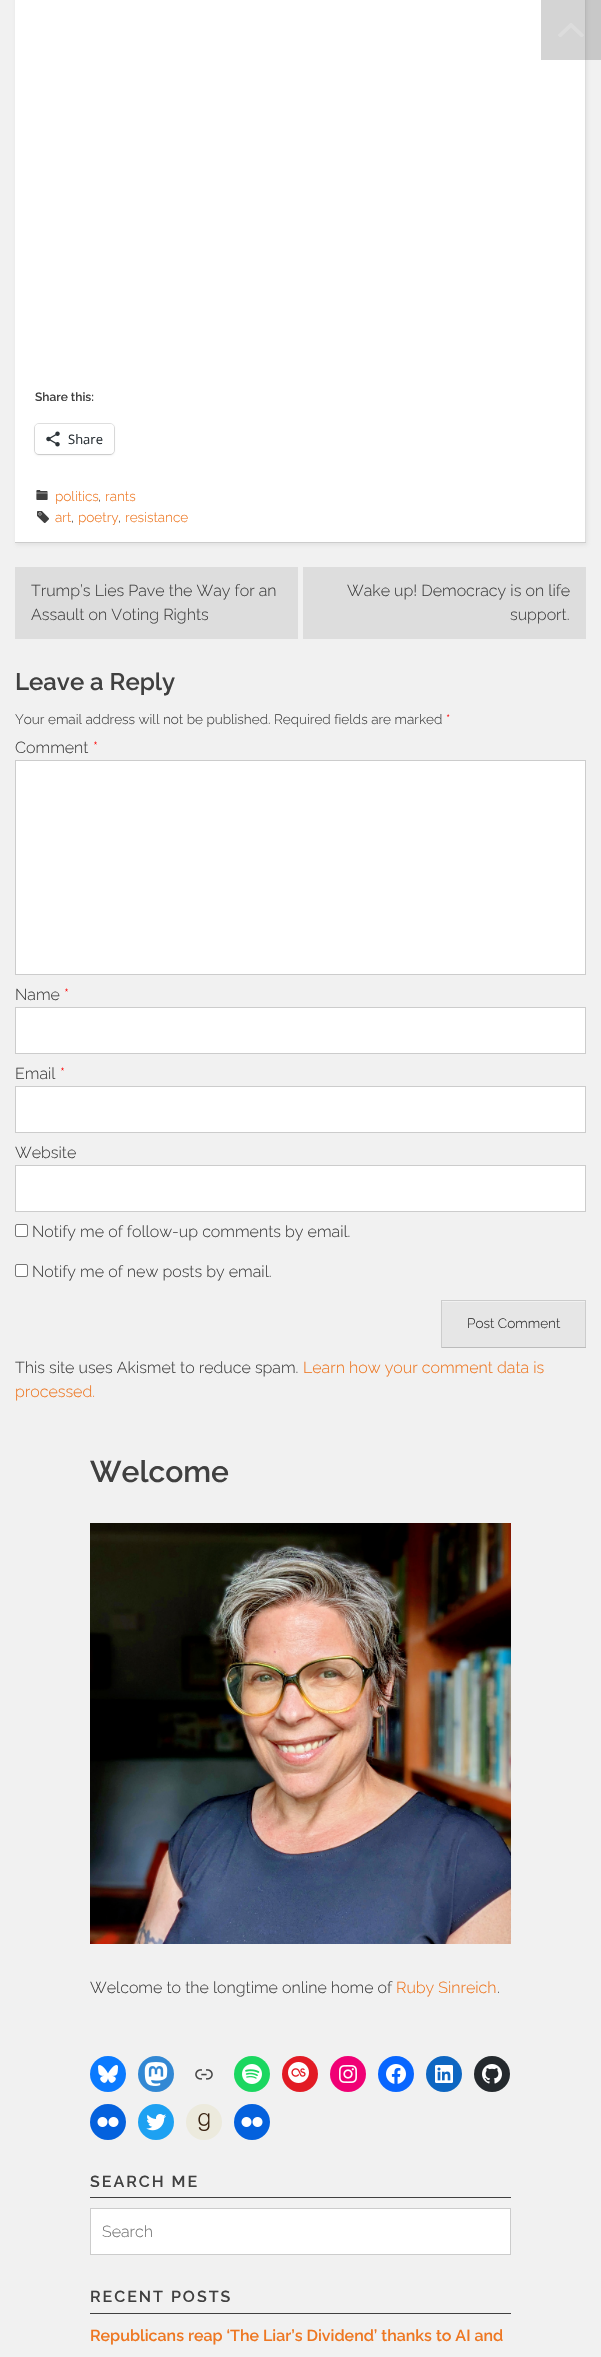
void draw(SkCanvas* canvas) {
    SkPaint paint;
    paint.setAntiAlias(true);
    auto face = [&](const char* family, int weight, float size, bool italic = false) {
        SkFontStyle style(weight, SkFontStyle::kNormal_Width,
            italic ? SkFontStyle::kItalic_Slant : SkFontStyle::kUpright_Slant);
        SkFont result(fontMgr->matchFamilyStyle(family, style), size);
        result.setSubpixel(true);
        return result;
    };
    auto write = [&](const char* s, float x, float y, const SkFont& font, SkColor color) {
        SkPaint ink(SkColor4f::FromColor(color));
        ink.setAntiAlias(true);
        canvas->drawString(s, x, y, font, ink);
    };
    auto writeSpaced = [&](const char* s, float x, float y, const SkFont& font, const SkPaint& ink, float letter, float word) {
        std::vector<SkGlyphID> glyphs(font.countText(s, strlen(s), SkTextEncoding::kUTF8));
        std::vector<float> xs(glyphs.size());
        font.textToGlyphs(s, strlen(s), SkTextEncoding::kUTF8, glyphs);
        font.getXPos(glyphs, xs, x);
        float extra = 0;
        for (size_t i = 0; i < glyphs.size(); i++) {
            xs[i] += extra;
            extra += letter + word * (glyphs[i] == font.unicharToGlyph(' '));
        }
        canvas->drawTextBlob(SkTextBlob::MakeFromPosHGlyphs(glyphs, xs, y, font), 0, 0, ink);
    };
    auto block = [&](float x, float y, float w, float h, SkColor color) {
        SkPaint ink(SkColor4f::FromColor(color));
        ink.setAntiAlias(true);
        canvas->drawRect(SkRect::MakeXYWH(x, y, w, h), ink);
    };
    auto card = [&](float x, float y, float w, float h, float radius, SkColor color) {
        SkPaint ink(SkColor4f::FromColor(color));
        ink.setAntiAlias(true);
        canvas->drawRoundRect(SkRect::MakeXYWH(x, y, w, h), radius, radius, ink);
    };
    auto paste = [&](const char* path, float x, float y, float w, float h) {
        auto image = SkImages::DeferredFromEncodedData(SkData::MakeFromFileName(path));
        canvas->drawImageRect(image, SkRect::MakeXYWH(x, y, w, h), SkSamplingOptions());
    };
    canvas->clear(SkColorSetRGB(241, 241, 241));
    paint.setColor(SkColorSetARGB(51, 160, 160, 160));
    paint.setMaskFilter(SkMaskFilter::MakeBlur(kNormal_SkBlurStyle, 2));
    canvas->drawRect(SkRect::MakeXYWH(16, -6, 571, 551), paint);
    paint.setMaskFilter(nullptr);
    block(15, 0, 570, 542, SK_ColorWHITE);
    block(585, 0, 1, 543, SkColorSetRGB(221, 221, 221));
    block(541, 0, 60, 60, SkColorSetARGB(43, 0, 0, 0));
    paste("pic1.png", 558, 23, 26, 14);
    block(15, 542, 571, 1, SkColorSetRGB(204, 204, 204));
    auto kFont1 = face("Raleway", 600, 12);
    write("Share this:", 35, 401, kFont1, SkColorSetRGB(64, 64, 64));
    paint.setStyle(SkPaint::kStroke_Style);
    paint.setStrokeWidth(1);
    paint.setColor(SkColorSetRGB(224, 224, 224));
    canvas->drawRoundRect(SkRect::MakeXYWH(34.5f, 423.5f, 80, 31), 4.5f, 4.5f, paint);
    paint.setStyle(SkPaint::kFill_Style);
    paint.setColor(SkColorSetARGB(31, 0, 0, 0));
    paint.setMaskFilter(SkMaskFilter::MakeBlur(kNormal_SkBlurStyle, 1));
    canvas->drawRoundRect(SkRect::MakeXYWH(35, 425, 79, 30), 4, 4, paint);
    paint.setMaskFilter(nullptr);
    card(35, 424, 79, 30, 4, SK_ColorWHITE);
    paste("pic2.png", 46, 431, 14, 16);
    auto kFont2 = face("Open Sans", 400, 13);
    write("Share", 68, 444, kFont2, SkColorSetRGB(44, 51, 56));
    paste("pic3.png", 36, 490, 12, 10);
    auto kFont3 = face("Raleway", 300, 13.6f);
    write("politics", 55, 501, kFont3, SkColorSetRGB(238, 119, 34));
    write(",", 98, 501, kFont3, SkColorSetRGB(64, 64, 64));
    write("rants", 105, 501, kFont3, SkColorSetRGB(238, 119, 34));
    paste("pic4.png", 37, 511, 12, 12);
    write("art", 55, 522, kFont3, SkColorSetRGB(238, 119, 34));
    write(",", 71, 522, kFont3, SkColorSetRGB(64, 64, 64));
    write("poetry", 78, 522, kFont3, SkColorSetRGB(238, 119, 34));
    write(",", 118, 522, kFont3, SkColorSetRGB(64, 64, 64));
    write("resistance", 125, 522, kFont3, SkColorSetRGB(238, 119, 34));
    block(15, 567, 283, 72, SkColorSetRGB(221, 221, 221));
    auto kFont4 = face("Raleway", 300, 16);
    write("Trump’s Lies Pave the Way for an", 31, 596, kFont4, SkColorSetRGB(64, 64, 64));
    write("Assault on Voting Rights", 31, 620, kFont4, SkColorSetRGB(64, 64, 64));
    block(303, 567, 283, 72, SkColorSetRGB(221, 221, 221));
    write("Wake up! Democracy is on life", 347, 596, kFont4, SkColorSetRGB(64, 64, 64));
    write("support.", 510, 620, kFont4, SkColorSetRGB(64, 64, 64));
    auto kFont5 = face("Raleway", 600, 24);
    write("Leave a Reply", 15, 690, kFont5, SkColorSetRGB(64, 64, 64));
    write("Your email address will not be published. Required fields are marked", 15, 724, kFont3, SkColorSetRGB(64, 64, 64));
    write("*", 446, 724, kFont3, SkColorSetRGB(255, 0, 0));
    write("Comment", 15, 753, kFont4, SkColorSetRGB(64, 64, 64));
    write("*", 93, 753, kFont4, SkColorSetRGB(255, 0, 0));
    paint.setColor(SK_ColorWHITE);
    canvas->drawRect(SkRect::MakeXYWH(15.5f, 760.5f, 570, 214), paint);
    paint.setStyle(SkPaint::kStroke_Style);
    paint.setColor(SkColorSetRGB(204, 204, 204));
    canvas->drawRect(SkRect::MakeXYWH(15.5f, 760.5f, 570, 214), paint);
    write("Name", 15, 1000, kFont4, SkColorSetRGB(64, 64, 64));
    write("*", 64, 1000, kFont4, SkColorSetRGB(255, 0, 0));
    paint.setStyle(SkPaint::kFill_Style);
    paint.setColor(SK_ColorWHITE);
    canvas->drawRect(SkRect::MakeXYWH(15.5f, 1007.5f, 570, 46), paint);
    paint.setStyle(SkPaint::kStroke_Style);
    paint.setColor(SkColorSetRGB(204, 204, 204));
    canvas->drawRect(SkRect::MakeXYWH(15.5f, 1007.5f, 570, 46), paint);
    write("Email", 15, 1079, kFont4, SkColorSetRGB(64, 64, 64));
    write("*", 60, 1079, kFont4, SkColorSetRGB(255, 0, 0));
    paint.setStyle(SkPaint::kFill_Style);
    paint.setColor(SK_ColorWHITE);
    canvas->drawRect(SkRect::MakeXYWH(15.5f, 1086.5f, 570, 46), paint);
    paint.setStyle(SkPaint::kStroke_Style);
    paint.setColor(SkColorSetRGB(204, 204, 204));
    canvas->drawRect(SkRect::MakeXYWH(15.5f, 1086.5f, 570, 46), paint);
    write("Website", 15, 1158, kFont4, SkColorSetRGB(64, 64, 64));
    paint.setStyle(SkPaint::kFill_Style);
    paint.setColor(SK_ColorWHITE);
    canvas->drawRect(SkRect::MakeXYWH(15.5f, 1165.5f, 570, 46), paint);
    paint.setStyle(SkPaint::kStroke_Style);
    paint.setColor(SkColorSetRGB(204, 204, 204));
    canvas->drawRect(SkRect::MakeXYWH(15.5f, 1165.5f, 570, 46), paint);
    paint.setStyle(SkPaint::kFill_Style);
    paint.setColor(SK_ColorWHITE);
    canvas->drawRoundRect(SkRect::MakeXYWH(15.5f, 1224.5f, 12, 12), 1.5f, 1.5f, paint);
    paint.setStyle(SkPaint::kStroke_Style);
    paint.setColor(SkColorSetRGB(118, 118, 118));
    canvas->drawRoundRect(SkRect::MakeXYWH(15.5f, 1224.5f, 12, 12), 1.5f, 1.5f, paint);
    write("Notify me of follow-up comments by email.", 32, 1237, kFont4, SkColorSetRGB(64, 64, 64));
    paint.setStyle(SkPaint::kFill_Style);
    paint.setColor(SK_ColorWHITE);
    canvas->drawRoundRect(SkRect::MakeXYWH(15.5f, 1264.5f, 12, 12), 1.5f, 1.5f, paint);
    paint.setStyle(SkPaint::kStroke_Style);
    paint.setColor(SkColorSetRGB(118, 118, 118));
    canvas->drawRoundRect(SkRect::MakeXYWH(15.5f, 1264.5f, 12, 12), 1.5f, 1.5f, paint);
    write("Notify me of new posts by email.", 32, 1277, kFont4, SkColorSetRGB(64, 64, 64));
    block(442, 1302, 143, 45, SkColorSetRGB(230, 230, 230));
    block(441, 1300, 145, 1, SkColorSetRGB(204, 204, 204));
    block(585, 1300, 1, 48, SkColorSetRGB(204, 204, 204));
    block(441, 1347, 145, 1, SkColorSetRGB(187, 187, 187));
    block(441, 1300, 1, 48, SkColorSetRGB(204, 204, 204));
    write("Post Comment", 467, 1328, kFont3, SkColorSetRGB(46, 46, 46));
    write("This site uses Akismet to reduce spam.", 15, 1373, kFont4, SkColorSetRGB(64, 64, 64));
    write("Learn how your comment data is", 303, 1373, kFont4, SkColorSetRGB(238, 119, 34));
    write("processed.", 15, 1397, kFont4, SkColorSetRGB(238, 119, 34));
    auto kFont6 = face("Raleway", 600, 30);
    write("Welcome", 90, 1482, kFont6, SkColorSetRGB(64, 64, 64));
    paste("pic5.png", 90, 1523, 421, 421);
    write("Welcome to the longtime online home of", 90, 1993, kFont4, SkColorSetRGB(64, 64, 64));
    write("Ruby Sinreich", 396, 1993, kFont4, SkColorSetRGB(238, 119, 34));
    write(".", 497, 1993, kFont4, SkColorSetRGB(64, 64, 64));
    paint.setStyle(SkPaint::kFill_Style);
    paint.setColor(SkColorSetRGB(10, 122, 255));
    canvas->drawCircle(108, 2074, 18, paint);
    paste("pic6.png", 98, 2065, 20, 18);
    paint.setColor(SkColorSetRGB(50, 136, 212));
    canvas->drawCircle(156, 2074, 18, paint);
    paste("pic7.png", 144, 2062, 24, 24);
    paste("pic8.png", 195, 2069, 18, 11);
    paint.setColor(SkColorSetRGB(27, 215, 96));
    canvas->drawCircle(252, 2074, 18, paint);
    paste("pic9.png", 242, 2064, 20, 20);
    paint.setColor(SkColorSetRGB(226, 27, 36));
    canvas->drawCircle(300, 2074, 18, paint);
    paste("pic10.png", 288, 2062, 21, 21);
    paint.setColor(SkColorSetRGB(240, 0, 117));
    canvas->drawCircle(348, 2074, 18, paint);
    paste("pic11.png", 339, 2065, 18, 18);
    paint.setColor(SkColorSetRGB(8, 102, 255));
    canvas->drawCircle(396, 2074, 18, paint);
    paste("pic12.png", 386, 2064, 20, 20);
    paint.setColor(SkColorSetRGB(13, 102, 194));
    canvas->drawCircle(444, 2074, 18, paint);
    paste("pic13.png", 435, 2065, 18, 18);
    paint.setColor(SkColorSetRGB(36, 41, 45));
    canvas->drawCircle(492, 2074, 18, paint);
    paste("pic14.png", 482, 2064, 20, 20);
    paint.setColor(SkColorSetRGB(4, 97, 221));
    canvas->drawCircle(108, 2122, 18, paint);
    paste("pic15.png", 97, 2117, 22, 10);
    paint.setColor(SkColorSetRGB(29, 161, 242));
    canvas->drawCircle(156, 2122, 18, paint);
    paste("pic16.png", 146, 2114, 20, 17);
    paint.setColor(SkColorSetRGB(236, 234, 221));
    canvas->drawCircle(204, 2122, 18, paint);
    paste("pic17.png", 198, 2113, 12, 18);
    paint.setColor(SkColorSetRGB(4, 97, 221));
    canvas->drawCircle(252, 2122, 18, paint);
    paste("pic15.png", 241, 2117, 22, 10);
    block(90, 2197, 421, 1, SkColorSetRGB(64, 64, 64));
    auto kFont7 = face("Raleway", 600, 16);
    paint.setColor(SkColorSetRGB(64, 64, 64));
    writeSpaced("SEARCH ME", 90, 2187, kFont7, paint, 2, 0);
    paint.setColor(SK_ColorWHITE);
    canvas->drawRect(SkRect::MakeXYWH(90.5f, 2208.5f, 420, 46), paint);
    paint.setStyle(SkPaint::kStroke_Style);
    paint.setColor(SkColorSetRGB(204, 204, 204));
    canvas->drawRect(SkRect::MakeXYWH(90.5f, 2208.5f, 420, 46), paint);
    write("Search", 102, 2237, kFont4, SkColorSetRGB(117, 117, 117));
    block(90, 2313, 421, 1, SkColorSetRGB(64, 64, 64));
    paint.setStyle(SkPaint::kFill_Style);
    paint.setColor(SkColorSetRGB(64, 64, 64));
    writeSpaced("RECENT POSTS", 90, 2302, kFont7, paint, 2, 0);
    write("Republicans reap ‘The Liar’s Dividend’ thanks to AI and", 90, 2341, kFont7, SkColorSetRGB(238, 119, 34));
}
